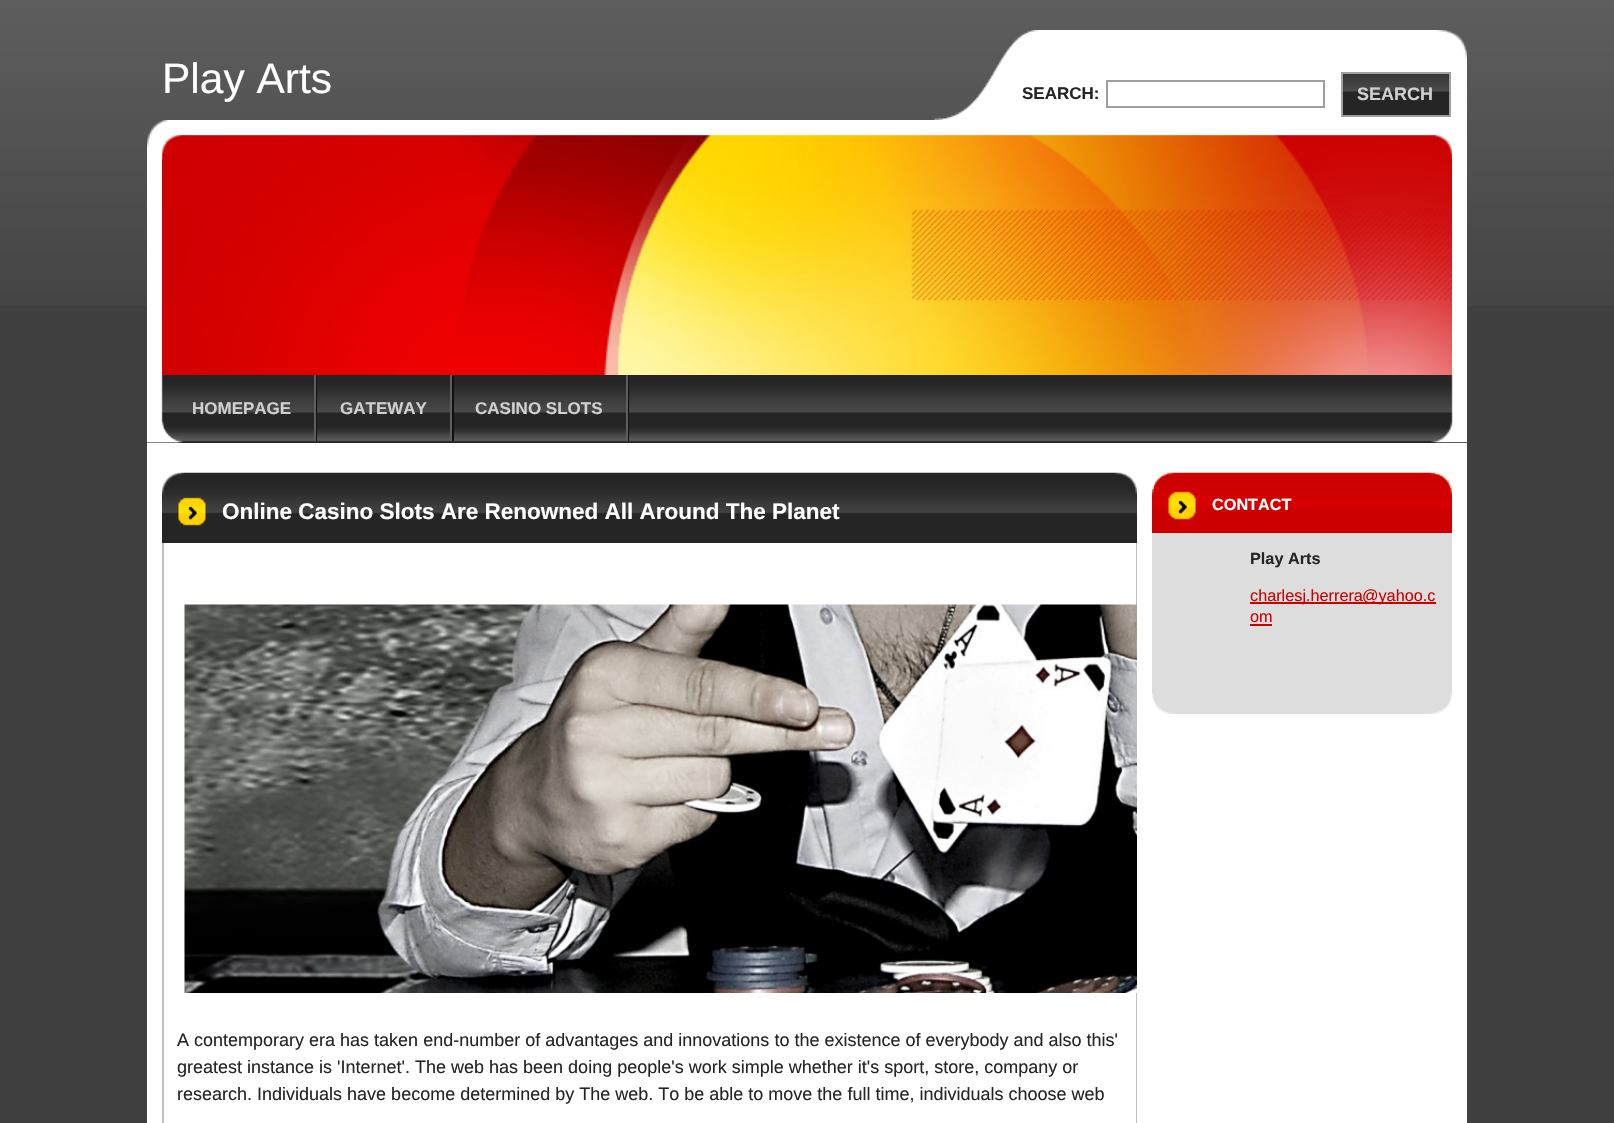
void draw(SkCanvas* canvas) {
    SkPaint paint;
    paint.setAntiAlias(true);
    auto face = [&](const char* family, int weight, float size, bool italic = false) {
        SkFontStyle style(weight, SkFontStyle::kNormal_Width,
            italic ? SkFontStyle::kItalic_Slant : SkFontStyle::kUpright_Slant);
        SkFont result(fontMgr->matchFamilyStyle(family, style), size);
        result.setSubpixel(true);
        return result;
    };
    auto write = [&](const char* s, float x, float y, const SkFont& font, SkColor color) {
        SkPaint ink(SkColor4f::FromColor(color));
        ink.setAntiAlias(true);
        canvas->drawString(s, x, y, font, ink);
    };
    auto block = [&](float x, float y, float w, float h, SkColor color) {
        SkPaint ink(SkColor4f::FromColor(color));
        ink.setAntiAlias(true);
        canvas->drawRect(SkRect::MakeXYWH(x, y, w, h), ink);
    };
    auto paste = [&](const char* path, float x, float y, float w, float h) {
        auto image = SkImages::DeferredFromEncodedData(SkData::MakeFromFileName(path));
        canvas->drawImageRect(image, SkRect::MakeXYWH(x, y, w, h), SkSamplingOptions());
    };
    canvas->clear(SkColorSetRGB(64, 64, 64));
    paste("pic1.png", 0, 0, 1614, 306);
    auto kFont1 = face("Liberation Sans", 400, 42.5f);
    write("Play Arts", 162, 93, kFont1, SK_ColorWHITE);
    paste("pic2.png", 147, 120, 1320, 255);
    paste("pic4.png", 162, 135, 1290, 240);
    paste("pic3.png", 147, 120, 1305, 39);
    block(147, 442, 1320, 1, SkColorSetRGB(34, 34, 34));
    paste("pic5.png", 147, 375, 1320, 68);
    block(316, 375, 1, 66, SkColorSetRGB(16, 16, 16));
    block(314, 375, 2, 66, SkColorSetRGB(95, 95, 95));
    auto kFont2 = face("Liberation Sans", 700, 17);
    write("HOMEPAGE", 192, 414, kFont2, SkColorSetRGB(208, 208, 208));
    block(452, 375, 2, 66, SkColorSetRGB(16, 16, 16));
    block(450, 375, 2, 66, SkColorSetRGB(95, 95, 95));
    write("GATEWAY", 340, 414, kFont2, SkColorSetRGB(208, 208, 208));
    block(628, 375, 1, 66, SkColorSetRGB(16, 16, 16));
    block(626, 375, 2, 66, SkColorSetRGB(95, 95, 95));
    write("CASINO SLOTS", 475, 414, kFont2, SkColorSetRGB(208, 208, 208));
    paste("pic6.png", 147, 421, 35, 22);
    paste("pic7.png", 934, 30, 533, 90);
    write("SEARCH:", 1022, 99, kFont2, SkColorSetRGB(37, 37, 37));
    paint.setStyle(SkPaint::kStroke_Style);
    paint.setStrokeWidth(2);
    paint.setColor(SkColorSetRGB(159, 159, 159));
    canvas->drawRect(SkRect::MakeXYWH(1107, 81, 217, 26), paint);
    block(1343, 91, 106, 24, SkColorSetRGB(37, 37, 37));
    paste("pic8.png", 1343, 74, 106, 18);
    canvas->drawRect(SkRect::MakeXYWH(1342, 73, 108, 43), paint);
    auto kFont3 = face("Liberation Sans", 700, 18);
    write("SEARCH", 1357, 100, kFont3, SkColorSetRGB(208, 208, 208));
    block(147, 443, 1320, 680, SK_ColorWHITE);
    paste("pic9.png", 162, 472, 975, 23);
    block(1136, 543, 1, 580, SkColorSetRGB(192, 192, 192));
    block(162, 543, 2, 580, SkColorSetRGB(192, 192, 192));
    block(162, 526, 975, 17, SkColorSetRGB(37, 37, 37));
    paste("pic10.png", 162, 495, 975, 31);
    auto kFont4 = face("Liberation Sans", 700, 22.5f);
    write("Online Casino Slots Are Renowned All Around The Planet", 222, 519, kFont4, SK_ColorWHITE);
    paste("pic11.png", 184, 604, 953, 389);
    auto kFont5 = face("Liberation Sans", 400, 18);
    write("A contemporary era has taken end-number of advantages and innovations to the existence of everybody and also this'", 177, 1046, kFont5, SkColorSetRGB(37, 37, 37));
    write("greatest instance is 'Internet'. The web has been doing people's work simple whether it's sport, store, company or", 177, 1073, kFont5, SkColorSetRGB(37, 37, 37));
    write("research. Individuals have become determined by The web. To be able to move the full time, individuals choose web", 177, 1100, kFont5, SkColorSetRGB(37, 37, 37));
    block(1152, 533, 300, 160, SkColorSetRGB(221, 221, 221));
    paste("pic12.png", 1152, 693, 300, 21);
    paste("pic14.png", 1152, 472, 300, 48);
    paste("pic13.png", 1152, 472, 300, 18);
    block(1152, 520, 300, 13, SkColorSetRGB(204, 0, 0));
    auto kFont6 = face("Liberation Sans", 700, 16.25f);
    write("CONTACT", 1212, 510, kFont6, SK_ColorWHITE);
    write("Play Arts", 1250, 564, kFont6, SkColorSetRGB(37, 37, 37));
    block(1250, 602, 112, 2, SkColorSetRGB(204, 0, 0));
    auto kFont7 = face("Liberation Sans", 400, 16.25f);
    write("charlesj.herrera", 1250, 601, kFont7, SkColorSetRGB(204, 0, 0));
    block(1362, 602, 74, 2, SkColorSetRGB(204, 0, 0));
    write("@yahoo.c", 1362, 601, kFont7, SkColorSetRGB(204, 0, 0));
    write("om", 1250, 622, kFont7, SkColorSetRGB(204, 0, 0));
    block(1250, 624, 22, 2, SkColorSetRGB(204, 0, 0));
}
